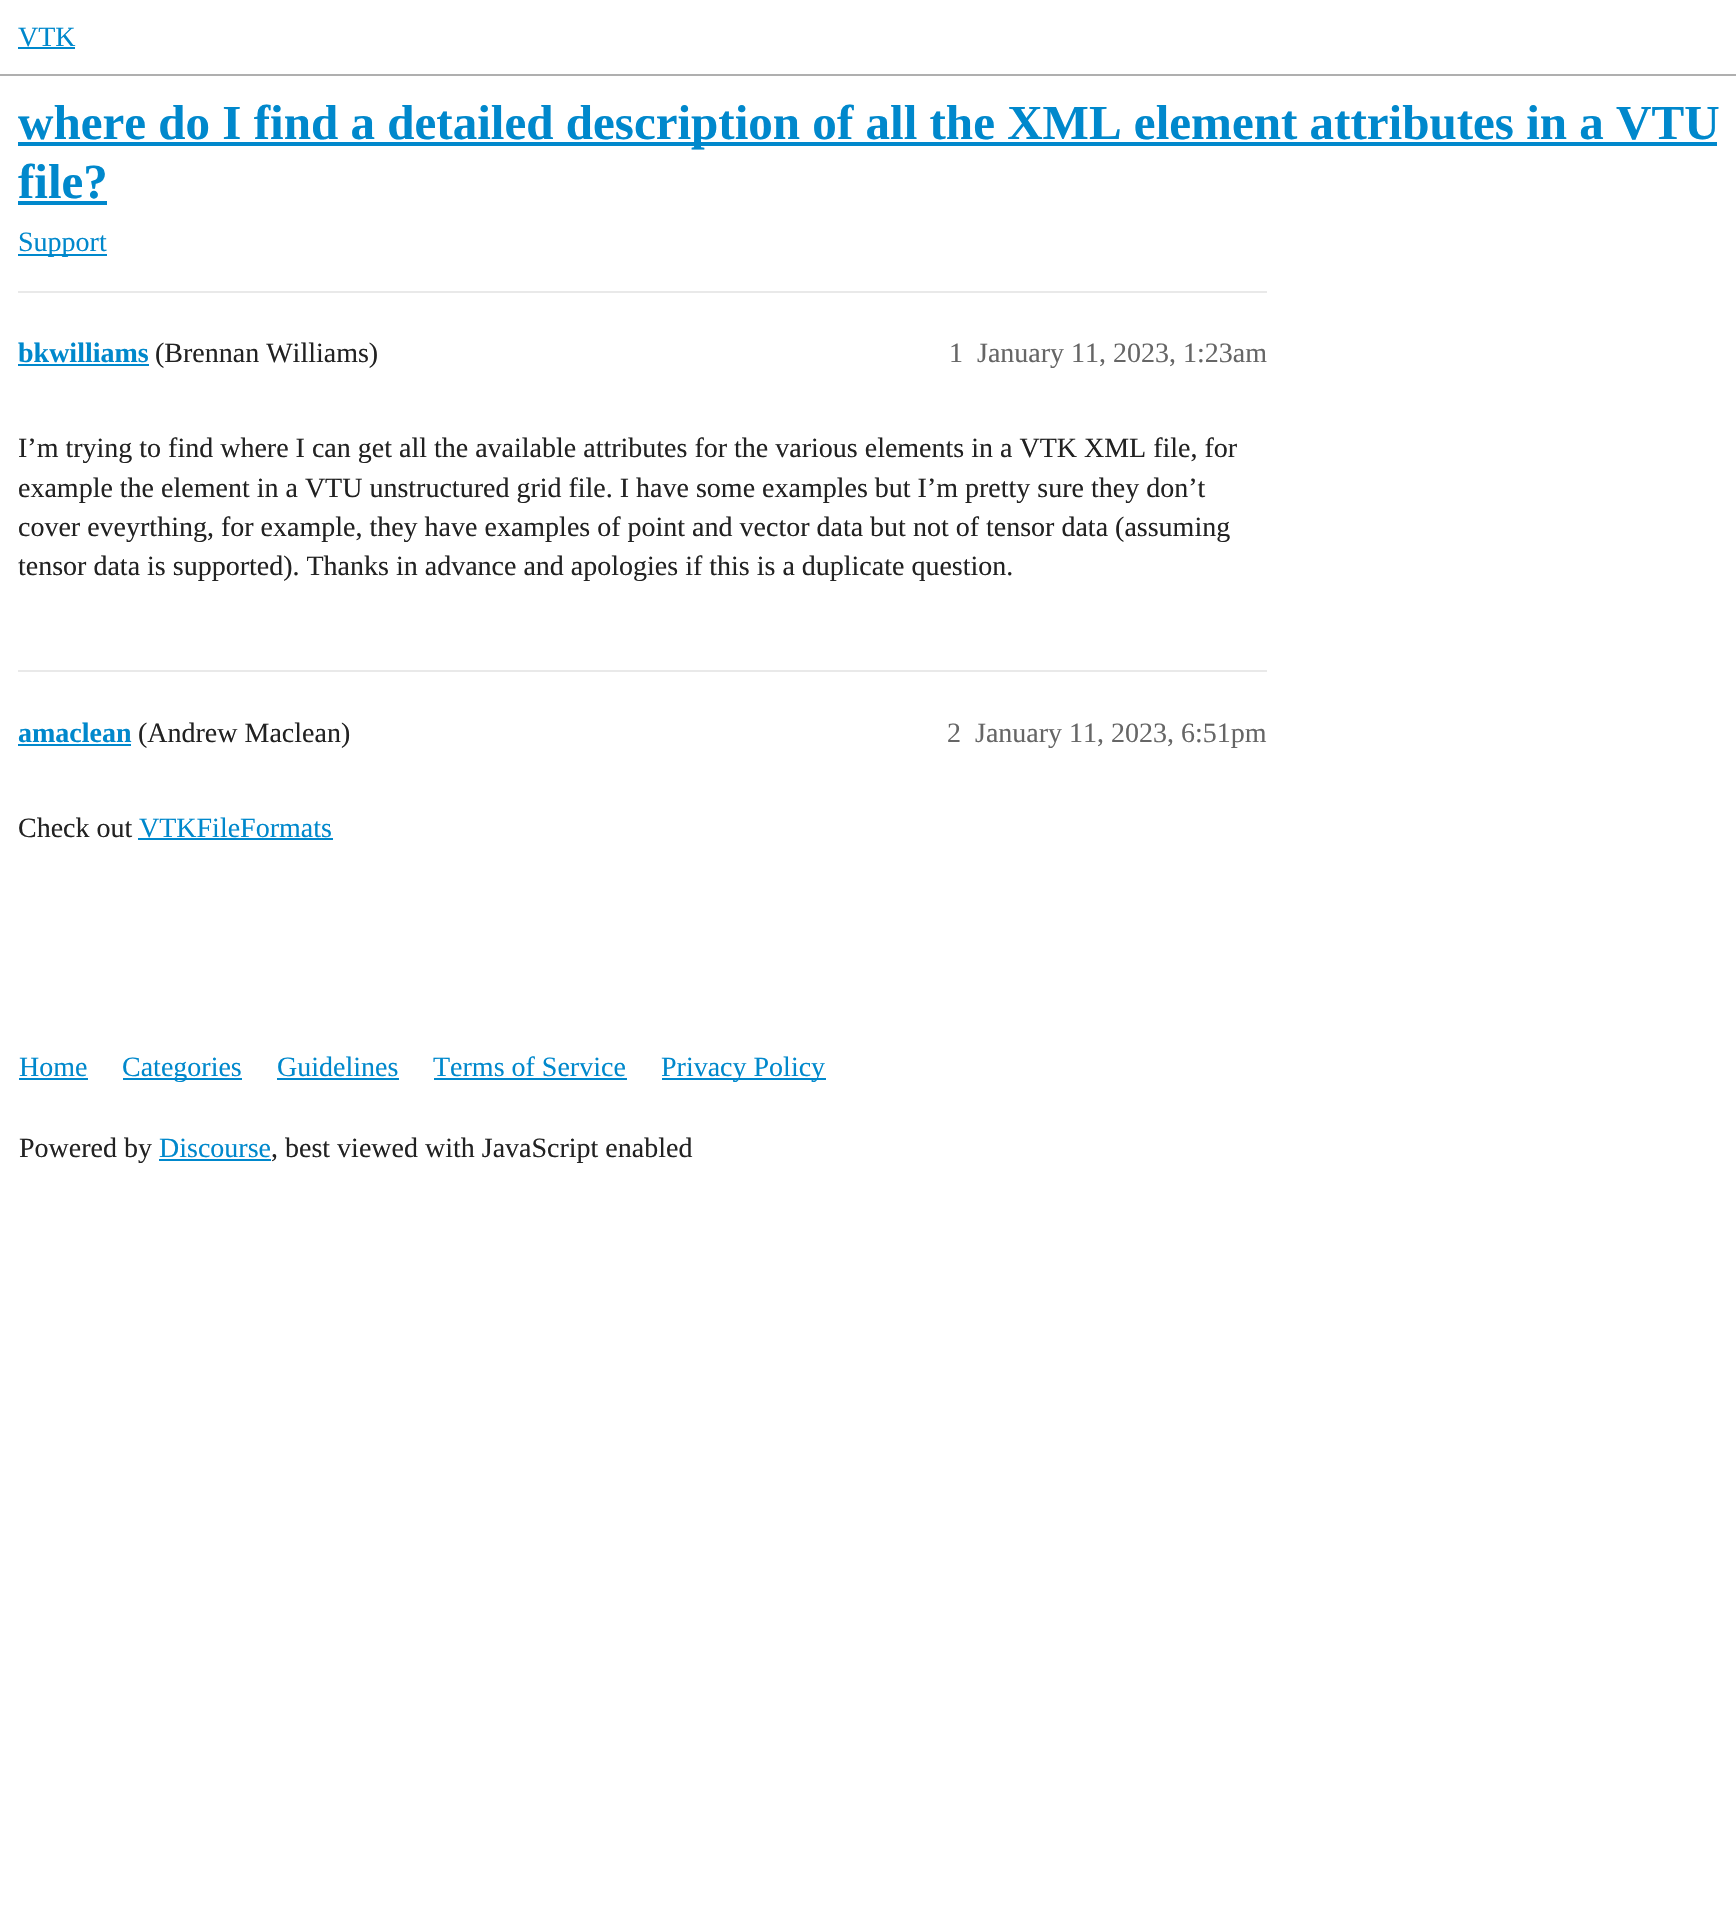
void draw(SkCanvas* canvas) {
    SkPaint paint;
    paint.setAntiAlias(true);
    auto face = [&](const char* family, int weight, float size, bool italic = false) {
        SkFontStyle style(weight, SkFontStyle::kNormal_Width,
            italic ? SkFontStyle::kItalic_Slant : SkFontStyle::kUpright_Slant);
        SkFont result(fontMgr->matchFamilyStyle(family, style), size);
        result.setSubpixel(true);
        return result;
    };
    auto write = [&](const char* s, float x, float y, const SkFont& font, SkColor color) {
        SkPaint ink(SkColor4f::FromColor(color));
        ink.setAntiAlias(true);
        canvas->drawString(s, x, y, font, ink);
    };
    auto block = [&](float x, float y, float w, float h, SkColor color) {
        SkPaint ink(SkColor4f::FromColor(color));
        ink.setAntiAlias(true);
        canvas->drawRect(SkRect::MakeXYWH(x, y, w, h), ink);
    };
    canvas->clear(SK_ColorWHITE);
    block(0, 74, 1736, 2, SkColorSetRGB(175, 175, 175));
    auto kFont1 = face("Liberation Serif", 400, 28);
    write("VTK", 18, 46, kFont1, SkColorSetRGB(0, 136, 204));
    block(18, 47, 57, 2, SkColorSetRGB(0, 136, 204));
    block(18, 142, 1699, 4, SkColorSetRGB(0, 136, 204));
    auto kFont2 = face("Liberation Serif", 700, 49.05f);
    write("where do I find a detailed description of all the XML element attributes in a VTU", 18, 139, kFont2, SkColorSetRGB(0, 136, 204));
    write("file?", 18, 198, kFont2, SkColorSetRGB(0, 136, 204));
    block(18, 201, 89, 4, SkColorSetRGB(0, 136, 204));
    block(18, 254, 89, 2, SkColorSetRGB(0, 136, 204));
    write("Support", 18, 251, kFont1, SkColorSetRGB(0, 136, 204));
    block(18, 291, 1249, 2, SkColorSetRGB(233, 233, 233));
    auto kFont3 = face("Liberation Serif", 700, 28);
    write("bkwilliams", 18, 362, kFont3, SkColorSetRGB(0, 136, 204));
    block(18, 364, 131, 2, SkColorSetRGB(0, 136, 204));
    write("(Brennan Williams)", 155, 362, kFont1, SkColorSetRGB(34, 34, 34));
    write("1", 949, 362, kFont1, SkColorSetRGB(102, 102, 102));
    write("January 11, 2023, 1:23am", 977, 362, kFont1, SkColorSetRGB(102, 102, 102));
    write("I’m trying to find where I can get all the available attributes for the various elements in a VTK XML file, for", 18, 457, kFont1, SkColorSetRGB(34, 34, 34));
    write("example the element in a VTU unstructured grid file. I have some examples but I’m pretty sure they don’t", 18, 497, kFont1, SkColorSetRGB(34, 34, 34));
    write("cover eveyrthing, for example, they have examples of point and vector data but not of tensor data (assuming", 18, 536, kFont1, SkColorSetRGB(34, 34, 34));
    write("tensor data is supported). Thanks in advance and apologies if this is a duplicate question.", 18, 575, kFont1, SkColorSetRGB(34, 34, 34));
    block(18, 670, 1249, 2, SkColorSetRGB(233, 233, 233));
    write("amaclean", 18, 742, kFont3, SkColorSetRGB(0, 136, 204));
    block(18, 744, 113, 2, SkColorSetRGB(0, 136, 204));
    write("(Andrew Maclean)", 138, 742, kFont1, SkColorSetRGB(34, 34, 34));
    write("2", 947, 742, kFont1, SkColorSetRGB(102, 102, 102));
    write("January 11, 2023, 6:51pm", 975, 742, kFont1, SkColorSetRGB(102, 102, 102));
    write("Check out", 18, 837, kFont1, SkColorSetRGB(34, 34, 34));
    write("VTKFileFormats", 139, 837, kFont1, SkColorSetRGB(0, 136, 204));
    block(138, 838, 195, 2, SkColorSetRGB(0, 136, 204));
    write("Home", 19, 1076, kFont1, SkColorSetRGB(0, 136, 204));
    block(19, 1078, 69, 2, SkColorSetRGB(0, 136, 204));
    block(123, 1078, 119, 2, SkColorSetRGB(0, 136, 204));
    write("Categories", 122, 1076, kFont1, SkColorSetRGB(0, 136, 204));
    write("Guidelines", 277, 1076, kFont1, SkColorSetRGB(0, 136, 204));
    block(277, 1078, 122, 2, SkColorSetRGB(0, 136, 204));
    write("Terms of Service", 433, 1076, kFont1, SkColorSetRGB(0, 136, 204));
    block(434, 1078, 193, 2, SkColorSetRGB(0, 136, 204));
    block(662, 1078, 164, 2, SkColorSetRGB(0, 136, 204));
    write("Privacy Policy", 661, 1076, kFont1, SkColorSetRGB(0, 136, 204));
    write("Powered by", 19, 1157, kFont1, SkColorSetRGB(34, 34, 34));
    write("Discourse", 159, 1157, kFont1, SkColorSetRGB(0, 136, 204));
    block(159, 1159, 112, 2, SkColorSetRGB(0, 136, 204));
    write(", best viewed with JavaScript enabled", 271, 1157, kFont1, SkColorSetRGB(34, 34, 34));
}
